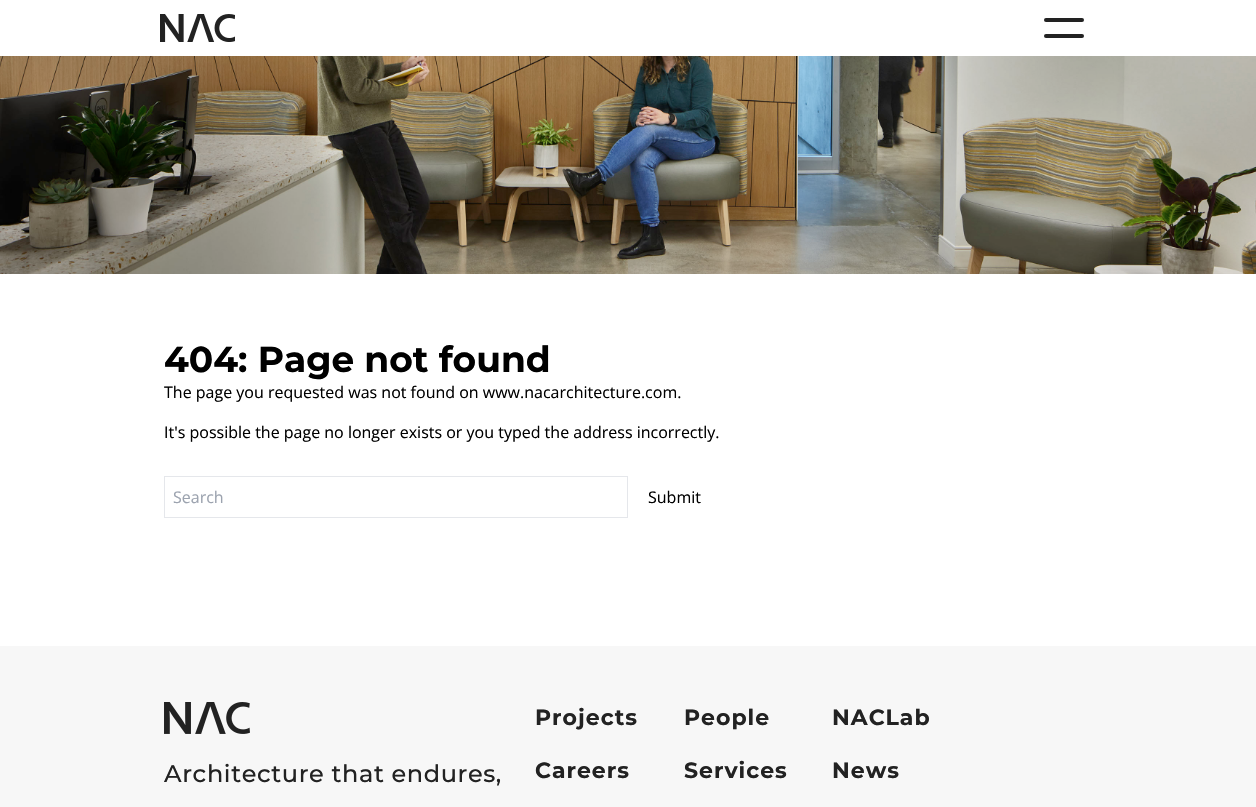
void draw(SkCanvas* canvas) {
    SkPaint paint;
    paint.setAntiAlias(true);
    auto face = [&](const char* family, int weight, float size, bool italic = false) {
        SkFontStyle style(weight, SkFontStyle::kNormal_Width,
            italic ? SkFontStyle::kItalic_Slant : SkFontStyle::kUpright_Slant);
        SkFont result(fontMgr->matchFamilyStyle(family, style), size);
        result.setSubpixel(true);
        return result;
    };
    auto write = [&](const char* s, float x, float y, const SkFont& font, SkColor color) {
        SkPaint ink(SkColor4f::FromColor(color));
        ink.setAntiAlias(true);
        canvas->drawString(s, x, y, font, ink);
    };
    auto writeSpaced = [&](const char* s, float x, float y, const SkFont& font, const SkPaint& ink, float letter, float word) {
        std::vector<SkGlyphID> glyphs(font.countText(s, strlen(s), SkTextEncoding::kUTF8));
        std::vector<float> xs(glyphs.size());
        font.textToGlyphs(s, strlen(s), SkTextEncoding::kUTF8, glyphs);
        font.getXPos(glyphs, xs, x);
        float extra = 0;
        for (size_t i = 0; i < glyphs.size(); i++) {
            xs[i] += extra;
            extra += letter + word * (glyphs[i] == font.unicharToGlyph(' '));
        }
        canvas->drawTextBlob(SkTextBlob::MakeFromPosHGlyphs(glyphs, xs, y, font), 0, 0, ink);
    };
    auto block = [&](float x, float y, float w, float h, SkColor color) {
        SkPaint ink(SkColor4f::FromColor(color));
        ink.setAntiAlias(true);
        canvas->drawRect(SkRect::MakeXYWH(x, y, w, h), ink);
    };
    auto card = [&](float x, float y, float w, float h, float radius, SkColor color) {
        SkPaint ink(SkColor4f::FromColor(color));
        ink.setAntiAlias(true);
        canvas->drawRoundRect(SkRect::MakeXYWH(x, y, w, h), radius, radius, ink);
    };
    auto paste = [&](const char* path, float x, float y, float w, float h) {
        auto image = SkImages::DeferredFromEncodedData(SkData::MakeFromFileName(path));
        canvas->drawImageRect(image, SkRect::MakeXYWH(x, y, w, h), SkSamplingOptions());
    };
    canvas->clear(SK_ColorWHITE);
    paste("pic1.png", 160, 14, 75, 28);
    card(1044, 18, 40, 4, 2, SkColorSetRGB(34, 34, 34));
    card(1044, 34, 40, 4, 2, SkColorSetRGB(34, 34, 34));
    paste("pic2.png", 0, 56, 1256, 218);
    auto kFont1 = face("Montserrat", 700, 36);
    write("404: Page not found", 164, 372, kFont1, SK_ColorBLACK);
    auto kFont2 = face("Open Sans", 400, 16);
    write("The page you requested was not found on www.nacarchitecture.com.", 164, 398, kFont2, SK_ColorBLACK);
    write("It's possible the page no longer exists or you typed the address incorrectly.", 164, 438, kFont2, SK_ColorBLACK);
    paint.setStyle(SkPaint::kStroke_Style);
    paint.setStrokeWidth(1);
    paint.setColor(SkColorSetRGB(229, 231, 235));
    canvas->drawRect(SkRect::MakeXYWH(164.5f, 476.5f, 463, 41), paint);
    write("Search", 173, 503, kFont2, SkColorSetRGB(156, 163, 175));
    write("Submit", 648, 503, kFont2, SK_ColorBLACK);
    block(0, 646, 1256, 161, SkColorSetRGB(247, 247, 247));
    paste("pic3.png", 164, 702, 86, 32);
    auto kFont3 = face("Montserrat", 500, 24);
    paint.setStyle(SkPaint::kFill_Style);
    paint.setColor(SkColorSetRGB(34, 34, 34));
    writeSpaced("Architecture that endures,", 164, 782, kFont3, paint, 0.6f, 0);
    auto kFont4 = face("Montserrat", 700, 22);
    writeSpaced("Projects", 535, 725, kFont4, paint, 1, 0);
    writeSpaced("People", 684, 725, kFont4, paint, 1, 0);
    writeSpaced("NACLab", 832, 725, kFont4, paint, 1, 0);
    writeSpaced("Careers", 535, 778, kFont4, paint, 1, 0);
    writeSpaced("Services", 684, 778, kFont4, paint, 1, 0);
    writeSpaced("News", 832, 778, kFont4, paint, 1, 0);
}
